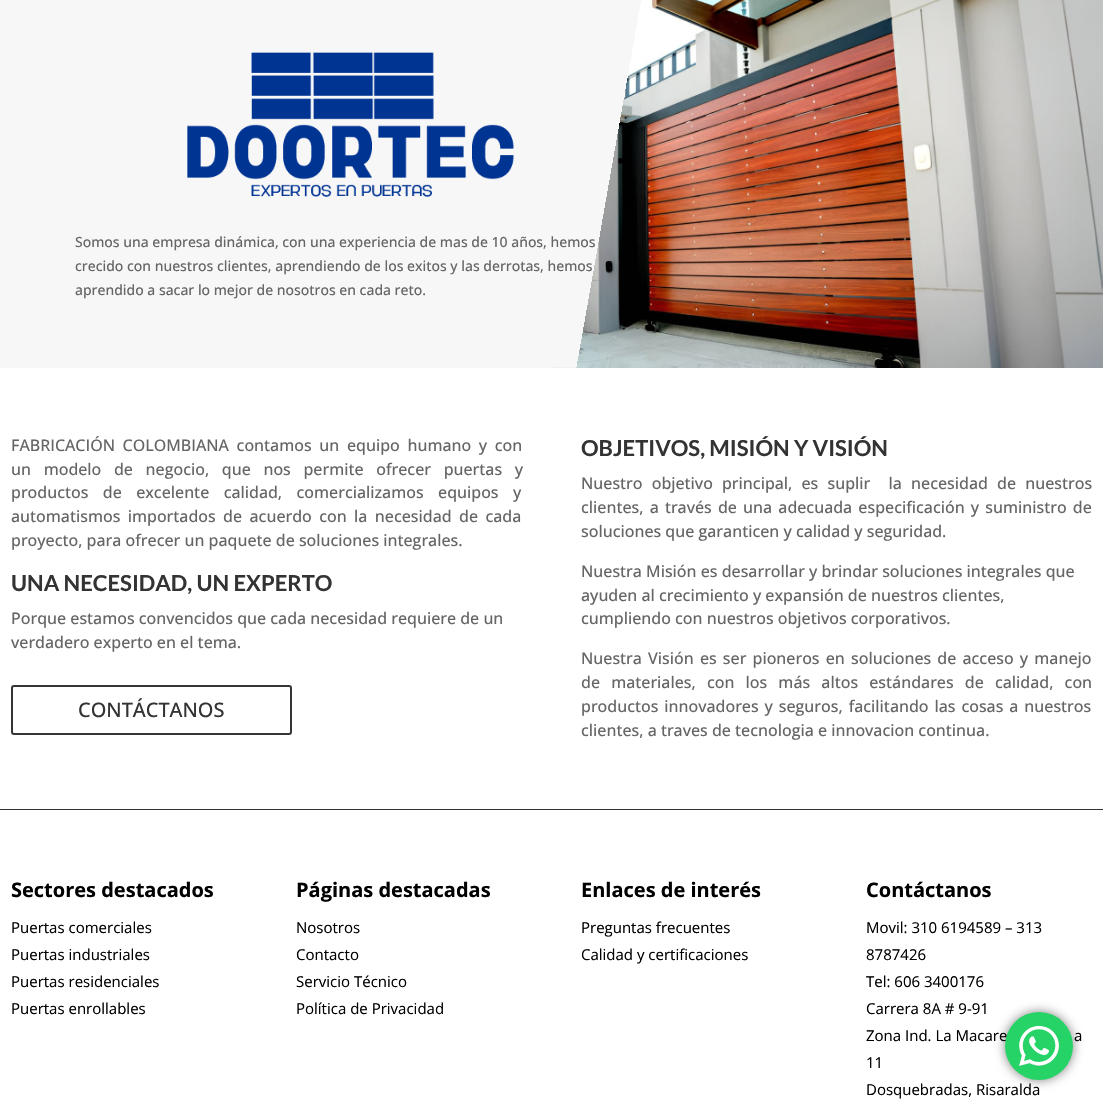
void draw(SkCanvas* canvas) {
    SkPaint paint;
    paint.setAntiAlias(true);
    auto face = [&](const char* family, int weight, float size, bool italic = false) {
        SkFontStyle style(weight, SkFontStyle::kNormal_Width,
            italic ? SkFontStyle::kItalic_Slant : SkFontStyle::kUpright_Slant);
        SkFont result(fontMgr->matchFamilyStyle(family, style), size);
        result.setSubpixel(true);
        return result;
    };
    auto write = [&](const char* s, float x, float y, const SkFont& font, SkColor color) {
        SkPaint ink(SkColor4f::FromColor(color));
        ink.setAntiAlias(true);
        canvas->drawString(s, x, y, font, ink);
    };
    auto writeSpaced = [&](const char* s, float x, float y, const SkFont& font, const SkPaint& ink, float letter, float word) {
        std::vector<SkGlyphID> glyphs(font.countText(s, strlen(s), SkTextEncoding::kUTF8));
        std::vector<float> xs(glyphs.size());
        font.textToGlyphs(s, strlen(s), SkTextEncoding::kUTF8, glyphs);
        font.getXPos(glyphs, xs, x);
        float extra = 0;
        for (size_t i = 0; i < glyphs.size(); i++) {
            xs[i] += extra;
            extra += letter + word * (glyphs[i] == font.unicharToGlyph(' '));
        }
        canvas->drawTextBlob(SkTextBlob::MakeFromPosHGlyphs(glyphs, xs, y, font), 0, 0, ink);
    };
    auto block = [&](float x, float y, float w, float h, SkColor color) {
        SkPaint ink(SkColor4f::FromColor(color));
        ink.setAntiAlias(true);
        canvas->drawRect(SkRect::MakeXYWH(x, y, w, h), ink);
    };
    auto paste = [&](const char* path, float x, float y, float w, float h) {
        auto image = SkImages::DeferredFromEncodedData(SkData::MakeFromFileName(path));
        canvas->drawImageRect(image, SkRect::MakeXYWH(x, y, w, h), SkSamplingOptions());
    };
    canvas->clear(SK_ColorWHITE);
    paste("pic1.png", 0, 0, 1103, 368);
    paste("pic2.png", 187, 52, 327, 145);
    auto kFont1 = face("Open Sans", 500, 14);
    write("Somos una empresa dinámica, con una experiencia de mas de 10 años, hemos", 75, 247, kFont1, SkColorSetRGB(102, 102, 102));
    write("crecido con nuestros clientes, aprendiendo de los exitos y las derrotas, hemos", 75, 271, kFont1, SkColorSetRGB(102, 102, 102));
    write("aprendido a sacar lo mejor de nosotros en cada reto.", 75, 295, kFont1, SkColorSetRGB(102, 102, 102));
    auto kFont2 = face("Open Sans", 500, 16);
    paint.setColor(SkColorSetRGB(102, 102, 102));
    writeSpaced("FABRICACIÓN COLOMBIANA contamos un equipo humano y con", 11, 451, kFont2, paint, 0, 3.5f);
    writeSpaced("un modelo de negocio, que nos permite ofrecer puertas y", 11, 475, kFont2, paint, 0, 8.5f);
    writeSpaced("productos de excelente calidad, comercializamos equipos y", 11, 498, kFont2, paint, 0, 10.25f);
    writeSpaced("automatismos importados de acuerdo con la necesidad de cada", 11, 522, kFont2, paint, 0, 3.25f);
    write("proyecto, para ofrecer un paquete de soluciones integrales.", 11, 546, kFont2, SkColorSetRGB(102, 102, 102));
    auto kFont3 = face("Lato", 700, 22);
    write("UNA NECESIDAD, UN EXPERTO", 11, 591, kFont3, SkColorSetRGB(51, 51, 51));
    write("Porque estamos convencidos que cada necesidad requiere de un", 11, 624, kFont2, SkColorSetRGB(102, 102, 102));
    write("verdadero experto en el tema.", 11, 648, kFont2, SkColorSetRGB(102, 102, 102));
    paint.setStyle(SkPaint::kStroke_Style);
    paint.setStrokeWidth(2);
    paint.setColor(SkColorSetRGB(52, 54, 53));
    canvas->drawRoundRect(SkRect::MakeXYWH(12, 686, 279, 48), 2, 2, paint);
    auto kFont4 = face("Open Sans", 500, 20);
    write("CONTÁCTANOS", 78, 717, kFont4, SkColorSetRGB(51, 51, 51));
    write("OBJETIVOS, MISIÓN Y VISIÓN", 581, 456, kFont3, SkColorSetRGB(51, 51, 51));
    paint.setStyle(SkPaint::kFill_Style);
    paint.setColor(SkColorSetRGB(102, 102, 102));
    writeSpaced("Nuestro objetivo principal, es suplir  la necesidad de nuestros", 581, 489, kFont2, paint, 0, 5);
    writeSpaced("clientes, a través de una adecuada especificación y suministro de", 581, 513, kFont2, paint, 0, 2);
    write("soluciones que garanticen y calidad y seguridad.", 581, 537, kFont2, SkColorSetRGB(102, 102, 102));
    write("Nuestra Misión es desarrollar y brindar soluciones integrales que", 581, 577, kFont2, SkColorSetRGB(102, 102, 102));
    write("ayuden al crecimiento y expansión de nuestros clientes,", 581, 601, kFont2, SkColorSetRGB(102, 102, 102));
    write("cumpliendo con nuestros objetivos corporativos.", 581, 624, kFont2, SkColorSetRGB(102, 102, 102));
    writeSpaced("Nuestra Visión es ser pioneros en soluciones de acceso y manejo", 581, 664, kFont2, paint, 0, 2);
    writeSpaced("de materiales, con los más altos estándares de calidad, con", 581, 688, kFont2, paint, 0, 7);
    writeSpaced("productos innovadores y seguros, facilitando las cosas a nuestros", 581, 712, kFont2, paint, 0, 1.75f);
    write("clientes, a traves de tecnologia e innovacion continua.", 581, 736, kFont2, SkColorSetRGB(102, 102, 102));
    block(0, 809, 1103, 1, SkColorSetRGB(51, 51, 51));
    auto kFont5 = face("Open Sans", 700, 20);
    write("Sectores destacados", 11, 897, kFont5, SK_ColorBLACK);
    auto kFont6 = face("Open Sans", 400, 15);
    write("Puertas comerciales", 11, 933, kFont6, SK_ColorBLACK);
    write("Puertas industriales", 11, 960, kFont6, SK_ColorBLACK);
    write("Puertas residenciales", 11, 987, kFont6, SK_ColorBLACK);
    write("Puertas enrollables", 11, 1014, kFont6, SK_ColorBLACK);
    write("Páginas destacadas", 296, 897, kFont5, SK_ColorBLACK);
    write("Nosotros", 296, 933, kFont6, SK_ColorBLACK);
    write("Contacto", 296, 960, kFont6, SK_ColorBLACK);
    write("Servicio Técnico", 296, 987, kFont6, SK_ColorBLACK);
    write("Política de Privacidad", 296, 1014, kFont6, SK_ColorBLACK);
    write("Enlaces de interés", 581, 897, kFont5, SK_ColorBLACK);
    write("Preguntas frecuentes", 581, 933, kFont6, SK_ColorBLACK);
    write("Calidad y certificaciones", 581, 960, kFont6, SK_ColorBLACK);
    write("Contáctanos", 866, 897, kFont5, SK_ColorBLACK);
    write("Movil: 310 6194589 – 313", 866, 933, kFont6, SK_ColorBLACK);
    write("8787426", 866, 960, kFont6, SK_ColorBLACK);
    write("Tel: 606 3400176", 866, 987, kFont6, SK_ColorBLACK);
    write("Carrera 8A # 9-91", 866, 1014, kFont6, SK_ColorBLACK);
    write("Zona Ind. La Macare", 866, 1041, kFont6, SK_ColorBLACK);
    write("a", 1074, 1041, kFont6, SK_ColorBLACK);
    write("11", 866, 1068, kFont6, SK_ColorBLACK);
    write("Dosquebradas, Risaralda", 866, 1095, kFont6, SK_ColorBLACK);
    paint.setColor(SkColorSetARGB(128, 0, 0, 0));
    paint.setMaskFilter(SkMaskFilter::MakeBlur(kNormal_SkBlurStyle, 5.5f));
    canvas->drawRoundRect(SkRect::MakeXYWH(1005, 1012, 68, 68), 34, 34, paint);
    paint.setMaskFilter(nullptr);
    paint.setColor(SkColorSetRGB(37, 211, 102));
    canvas->drawCircle(1039, 1046, 34, paint);
    paste("pic3.png", 1019, 1026, 40, 40);
}
